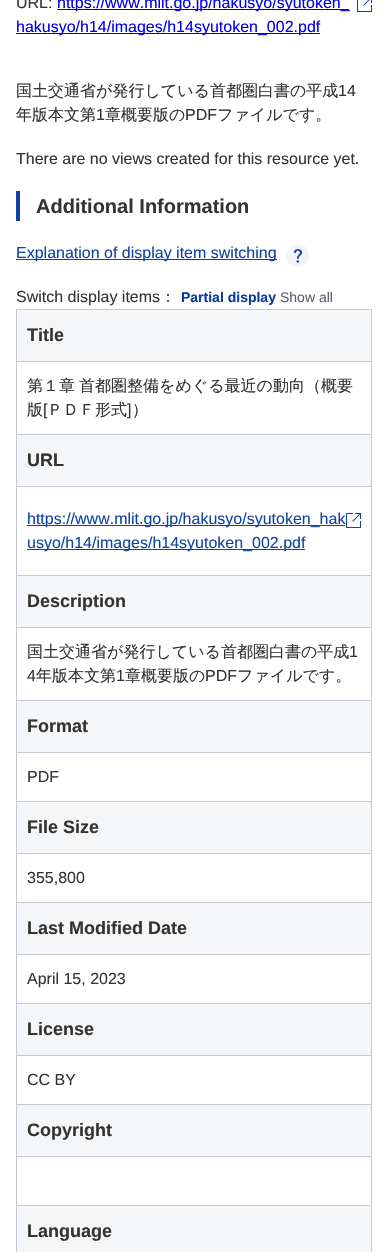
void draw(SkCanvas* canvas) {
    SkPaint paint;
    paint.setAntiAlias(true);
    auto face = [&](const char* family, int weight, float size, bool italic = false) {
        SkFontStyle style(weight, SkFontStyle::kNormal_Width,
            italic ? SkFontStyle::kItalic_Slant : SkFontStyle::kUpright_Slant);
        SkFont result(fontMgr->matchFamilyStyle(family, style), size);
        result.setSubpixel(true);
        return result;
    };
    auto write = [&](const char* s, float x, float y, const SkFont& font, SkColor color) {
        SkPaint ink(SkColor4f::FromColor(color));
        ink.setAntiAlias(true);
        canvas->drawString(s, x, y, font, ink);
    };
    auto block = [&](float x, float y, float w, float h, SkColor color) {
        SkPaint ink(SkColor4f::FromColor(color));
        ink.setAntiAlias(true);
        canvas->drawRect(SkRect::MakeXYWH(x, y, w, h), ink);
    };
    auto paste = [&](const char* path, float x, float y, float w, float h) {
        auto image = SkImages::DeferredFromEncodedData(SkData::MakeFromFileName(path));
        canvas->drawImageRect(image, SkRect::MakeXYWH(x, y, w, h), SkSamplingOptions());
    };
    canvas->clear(SK_ColorWHITE);
    auto kFont1 = face("Liberation Sans", 400, 16);
    write("URL:", 16, 8, kFont1, SkColorSetRGB(51, 51, 51));
    block(57, 9, 292, 1, SkColorSetRGB(0, 0, 238));
    write("https://www.mlit.go.jp/hakusyo/syutoken_", 57, 8, kFont1, SkColorSetRGB(0, 0, 238));
    block(16, 33, 304, 1, SkColorSetRGB(0, 0, 238));
    write("hakusyo/h14/images/h14syutoken_002.pdf", 16, 32, kFont1, SkColorSetRGB(0, 0, 238));
    paste("pic1.png", 357, 0, 15, 12);
    auto kFont2 = face("WenQuanYi Zen Hei", 500, 16);
    write("国土交通省が発行している首都圏白書の平成", 16, 96, kFont2, SkColorSetRGB(51, 51, 51));
    write("14", 338, 96, kFont1, SkColorSetRGB(51, 51, 51));
    write("年版本文第", 16, 120, kFont2, SkColorSetRGB(51, 51, 51));
    write("1", 96, 120, kFont1, SkColorSetRGB(51, 51, 51));
    write("章概要版の", 105, 120, kFont2, SkColorSetRGB(51, 51, 51));
    write("PDF", 185, 120, kFont1, SkColorSetRGB(51, 51, 51));
    write("ファイルです。", 217, 120, kFont2, SkColorSetRGB(51, 51, 51));
    write("There are no views created for this resource yet.", 16, 164, kFont1, SkColorSetRGB(51, 51, 51));
    block(16, 191, 4, 30, SkColorSetRGB(16, 66, 164));
    auto kFont3 = face("Liberation Sans", 700, 20);
    write("Additional Information", 36, 213, kFont3, SkColorSetRGB(51, 51, 51));
    block(16, 259, 261, 1, SkColorSetRGB(16, 66, 164));
    write("Explanation of display item switching", 16, 258, kFont1, SkColorSetRGB(16, 66, 164));
    paste("pic2.png", 286, 244, 23, 23);
    write("Switch display items", 16, 302, kFont1, SkColorSetRGB(51, 51, 51));
    write("：", 160, 302, kFont2, SkColorSetRGB(51, 51, 51));
    auto kFont4 = face("Liberation Sans", 700, 14);
    write("Partial display", 181, 302, kFont4, SkColorSetRGB(7, 58, 160));
    auto kFont5 = face("Liberation Sans", 400, 14);
    write("Show all", 280, 302, kFont5, SkColorSetRGB(90, 96, 108));
    block(17, 310, 354, 51, SkColorSetRGB(245, 246, 248));
    block(16, 309, 356, 1, SkColorSetRGB(198, 201, 211));
    block(371, 309, 1, 52, SkColorSetRGB(198, 201, 211));
    block(16, 309, 1, 52, SkColorSetRGB(198, 201, 211));
    auto kFont6 = face("Liberation Sans", 700, 18);
    write("Title", 27, 341, kFont6, SkColorSetRGB(51, 51, 51));
    block(16, 361, 356, 1, SkColorSetRGB(198, 201, 211));
    block(371, 361, 1, 73, SkColorSetRGB(198, 201, 211));
    block(16, 361, 1, 73, SkColorSetRGB(198, 201, 211));
    write("第１章", 27, 391, kFont2, SkColorSetRGB(51, 51, 51));
    write("首都圏整備をめぐる最近の動向（概要", 79, 391, kFont2, SkColorSetRGB(51, 51, 51));
    write("版", 27, 415, kFont2, SkColorSetRGB(51, 51, 51));
    write("[", 43, 415, kFont1, SkColorSetRGB(51, 51, 51));
    write("ＰＤＦ形式", 47, 415, kFont2, SkColorSetRGB(51, 51, 51));
    write("]", 127, 415, kFont1, SkColorSetRGB(51, 51, 51));
    write("）", 132, 415, kFont2, SkColorSetRGB(51, 51, 51));
    block(17, 435, 354, 51, SkColorSetRGB(245, 246, 248));
    block(16, 434, 356, 1, SkColorSetRGB(198, 201, 211));
    block(371, 434, 1, 52, SkColorSetRGB(198, 201, 211));
    block(16, 434, 1, 52, SkColorSetRGB(198, 201, 211));
    write("URL", 27, 466, kFont6, SkColorSetRGB(51, 51, 51));
    block(16, 486, 356, 1, SkColorSetRGB(198, 201, 211));
    block(371, 486, 1, 89, SkColorSetRGB(198, 201, 211));
    block(16, 486, 1, 89, SkColorSetRGB(198, 201, 211));
    block(27, 525, 318, 1, SkColorSetRGB(16, 66, 164));
    write("https://www.mlit.go.jp/hakusyo/syutoken_hak", 27, 524, kFont1, SkColorSetRGB(16, 66, 164));
    block(27, 549, 278, 1, SkColorSetRGB(16, 66, 164));
    write("usyo/h14/images/h14syutoken_002.pdf", 27, 548, kFont1, SkColorSetRGB(16, 66, 164));
    paste("pic3.png", 346, 513, 15, 15);
    block(17, 576, 354, 51, SkColorSetRGB(245, 246, 248));
    block(16, 575, 356, 1, SkColorSetRGB(198, 201, 211));
    block(371, 575, 1, 52, SkColorSetRGB(198, 201, 211));
    block(16, 575, 1, 52, SkColorSetRGB(198, 201, 211));
    write("Description", 27, 607, kFont6, SkColorSetRGB(51, 51, 51));
    block(16, 627, 356, 1, SkColorSetRGB(198, 201, 211));
    block(371, 627, 1, 73, SkColorSetRGB(198, 201, 211));
    block(16, 627, 1, 73, SkColorSetRGB(198, 201, 211));
    write("国土交通省が発行している首都圏白書の平成", 27, 657, kFont2, SkColorSetRGB(51, 51, 51));
    write("1", 349, 657, kFont1, SkColorSetRGB(51, 51, 51));
    write("4", 27, 681, kFont1, SkColorSetRGB(51, 51, 51));
    write("年版本文第", 36, 681, kFont2, SkColorSetRGB(51, 51, 51));
    write("1", 116, 681, kFont1, SkColorSetRGB(51, 51, 51));
    write("章概要版の", 125, 681, kFont2, SkColorSetRGB(51, 51, 51));
    write("PDF", 205, 681, kFont1, SkColorSetRGB(51, 51, 51));
    write("ファイルです。", 237, 681, kFont2, SkColorSetRGB(51, 51, 51));
    block(17, 701, 354, 51, SkColorSetRGB(245, 246, 248));
    block(16, 700, 356, 1, SkColorSetRGB(198, 201, 211));
    block(371, 700, 1, 52, SkColorSetRGB(198, 201, 211));
    block(16, 700, 1, 52, SkColorSetRGB(198, 201, 211));
    write("Format", 27, 732, kFont6, SkColorSetRGB(51, 51, 51));
    block(16, 752, 356, 1, SkColorSetRGB(198, 201, 211));
    block(371, 752, 1, 49, SkColorSetRGB(198, 201, 211));
    block(16, 752, 1, 49, SkColorSetRGB(198, 201, 211));
    write("PDF", 27, 782, kFont1, SkColorSetRGB(51, 51, 51));
    block(17, 802, 354, 51, SkColorSetRGB(245, 246, 248));
    block(16, 801, 356, 1, SkColorSetRGB(198, 201, 211));
    block(371, 801, 1, 52, SkColorSetRGB(198, 201, 211));
    block(16, 801, 1, 52, SkColorSetRGB(198, 201, 211));
    write("File Size", 27, 833, kFont6, SkColorSetRGB(51, 51, 51));
    block(16, 853, 356, 1, SkColorSetRGB(198, 201, 211));
    block(371, 853, 1, 49, SkColorSetRGB(198, 201, 211));
    block(16, 853, 1, 49, SkColorSetRGB(198, 201, 211));
    write("355,800", 27, 883, kFont1, SkColorSetRGB(51, 51, 51));
    block(17, 903, 354, 51, SkColorSetRGB(245, 246, 248));
    block(16, 902, 356, 1, SkColorSetRGB(198, 201, 211));
    block(371, 902, 1, 52, SkColorSetRGB(198, 201, 211));
    block(16, 902, 1, 52, SkColorSetRGB(198, 201, 211));
    write("Last Modified Date", 27, 934, kFont6, SkColorSetRGB(51, 51, 51));
    block(16, 954, 356, 1, SkColorSetRGB(198, 201, 211));
    block(371, 954, 1, 49, SkColorSetRGB(198, 201, 211));
    block(16, 954, 1, 49, SkColorSetRGB(198, 201, 211));
    write("April 15, 2023", 27, 984, kFont1, SkColorSetRGB(51, 51, 51));
    block(17, 1004, 354, 51, SkColorSetRGB(245, 246, 248));
    block(16, 1003, 356, 1, SkColorSetRGB(198, 201, 211));
    block(371, 1003, 1, 52, SkColorSetRGB(198, 201, 211));
    block(16, 1003, 1, 52, SkColorSetRGB(198, 201, 211));
    write("License", 27, 1035, kFont6, SkColorSetRGB(51, 51, 51));
    block(16, 1055, 356, 1, SkColorSetRGB(198, 201, 211));
    block(371, 1055, 1, 49, SkColorSetRGB(198, 201, 211));
    block(16, 1055, 1, 49, SkColorSetRGB(198, 201, 211));
    write("CC BY", 27, 1085, kFont1, SkColorSetRGB(51, 51, 51));
    block(17, 1105, 354, 51, SkColorSetRGB(245, 246, 248));
    block(16, 1104, 356, 1, SkColorSetRGB(198, 201, 211));
    block(371, 1104, 1, 52, SkColorSetRGB(198, 201, 211));
    block(16, 1104, 1, 52, SkColorSetRGB(198, 201, 211));
    write("Copyright", 27, 1136, kFont6, SkColorSetRGB(51, 51, 51));
    block(16, 1156, 356, 1, SkColorSetRGB(198, 201, 211));
    block(371, 1156, 1, 49, SkColorSetRGB(198, 201, 211));
    block(16, 1156, 1, 49, SkColorSetRGB(198, 201, 211));
    block(17, 1206, 354, 46, SkColorSetRGB(245, 246, 248));
    block(16, 1205, 356, 1, SkColorSetRGB(198, 201, 211));
    block(371, 1205, 1, 47, SkColorSetRGB(198, 201, 211));
    block(16, 1205, 1, 47, SkColorSetRGB(198, 201, 211));
    write("Language", 27, 1237, kFont6, SkColorSetRGB(51, 51, 51));
}
